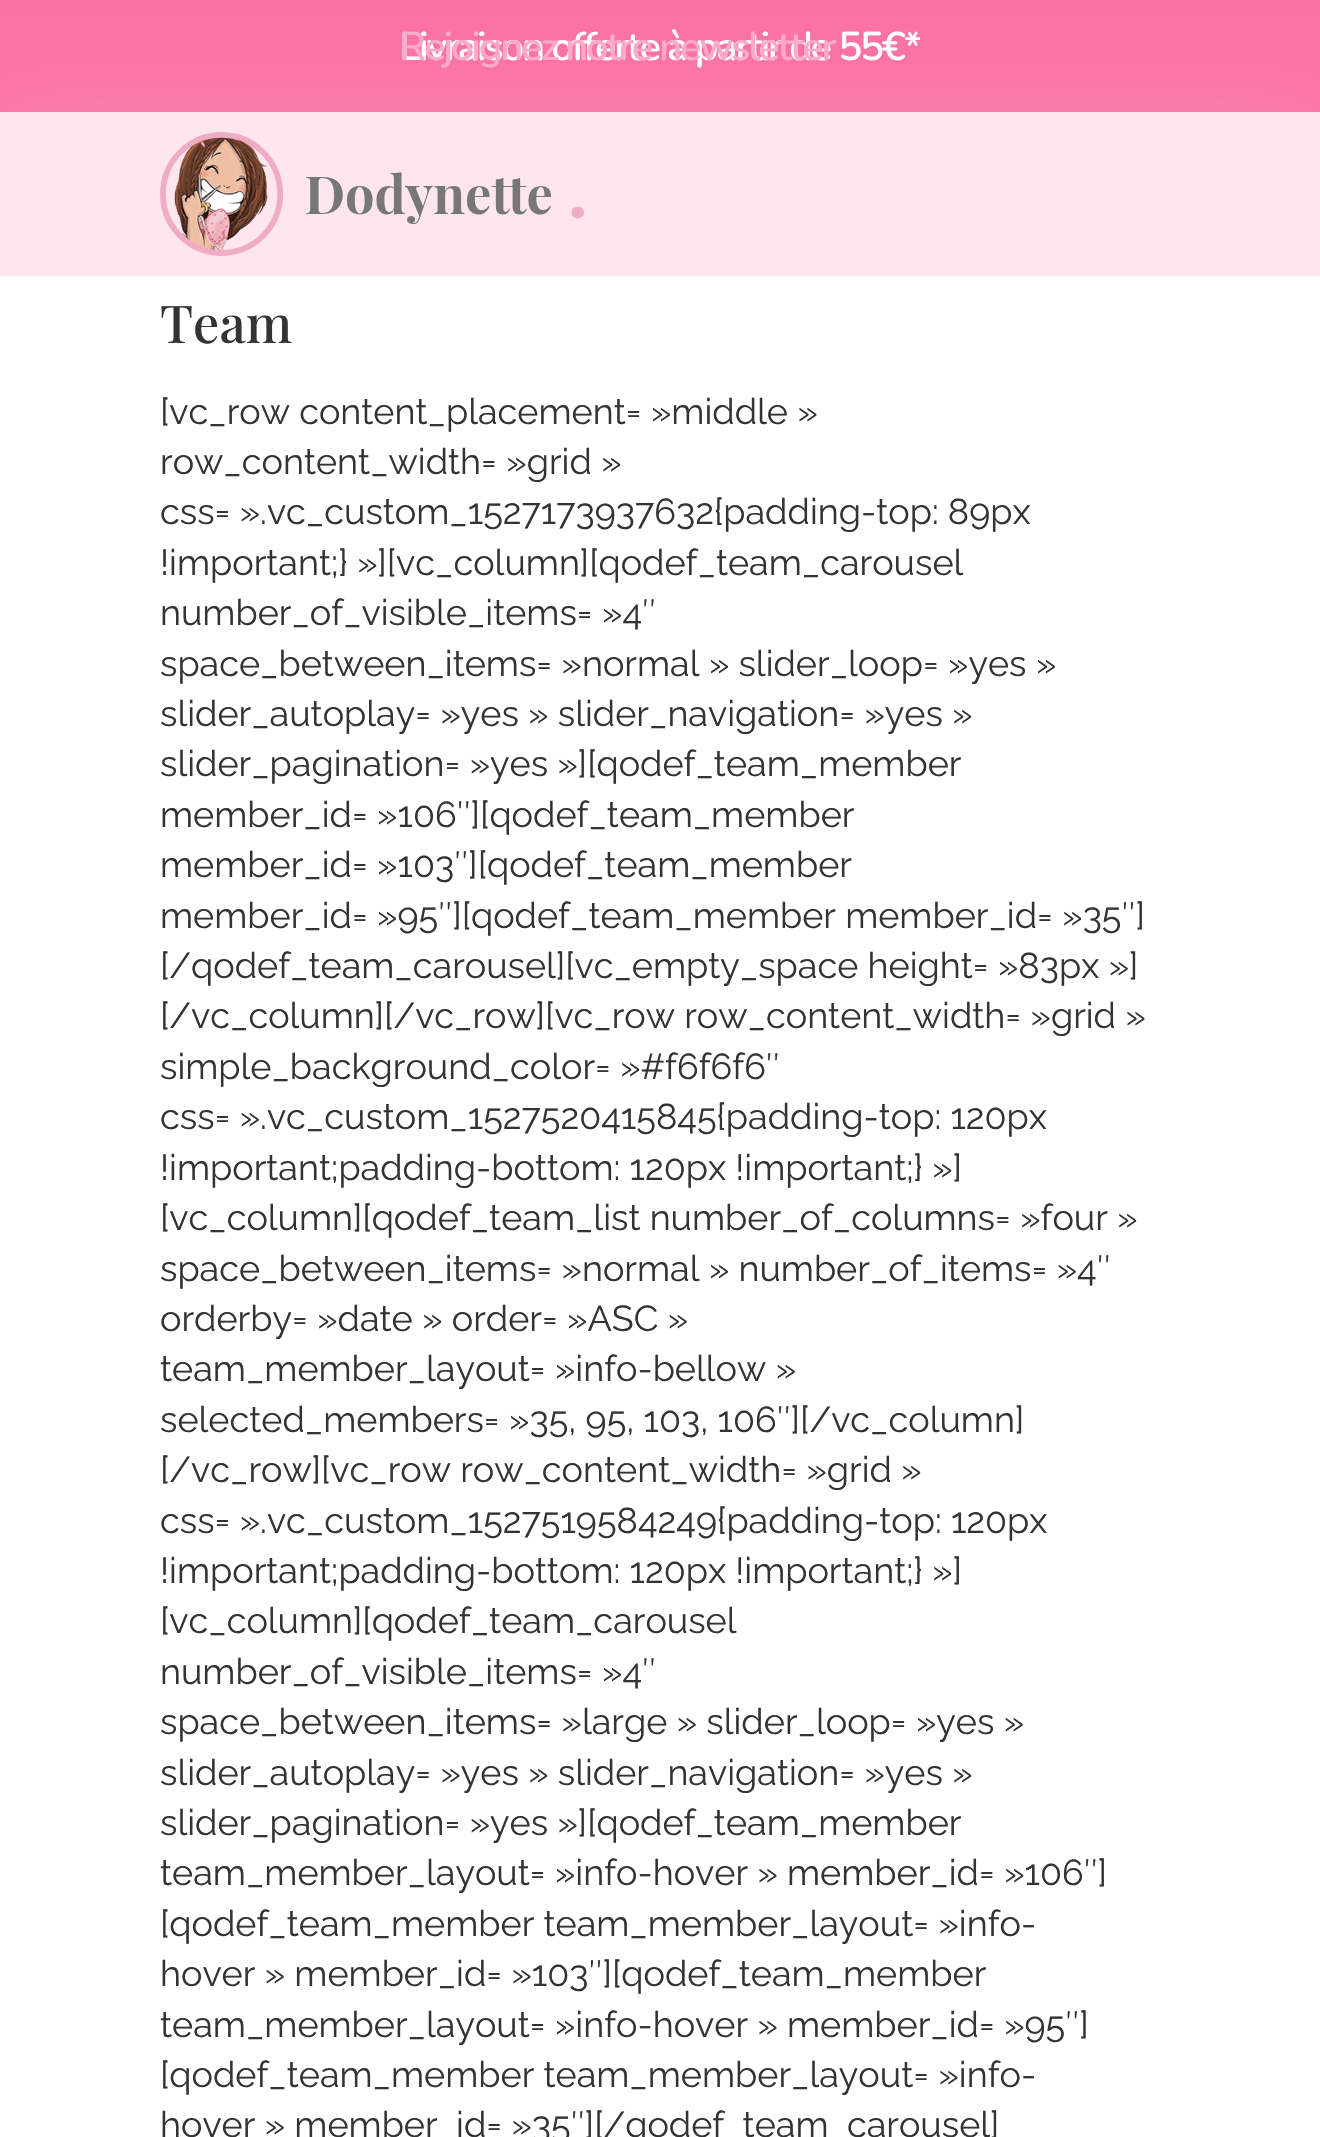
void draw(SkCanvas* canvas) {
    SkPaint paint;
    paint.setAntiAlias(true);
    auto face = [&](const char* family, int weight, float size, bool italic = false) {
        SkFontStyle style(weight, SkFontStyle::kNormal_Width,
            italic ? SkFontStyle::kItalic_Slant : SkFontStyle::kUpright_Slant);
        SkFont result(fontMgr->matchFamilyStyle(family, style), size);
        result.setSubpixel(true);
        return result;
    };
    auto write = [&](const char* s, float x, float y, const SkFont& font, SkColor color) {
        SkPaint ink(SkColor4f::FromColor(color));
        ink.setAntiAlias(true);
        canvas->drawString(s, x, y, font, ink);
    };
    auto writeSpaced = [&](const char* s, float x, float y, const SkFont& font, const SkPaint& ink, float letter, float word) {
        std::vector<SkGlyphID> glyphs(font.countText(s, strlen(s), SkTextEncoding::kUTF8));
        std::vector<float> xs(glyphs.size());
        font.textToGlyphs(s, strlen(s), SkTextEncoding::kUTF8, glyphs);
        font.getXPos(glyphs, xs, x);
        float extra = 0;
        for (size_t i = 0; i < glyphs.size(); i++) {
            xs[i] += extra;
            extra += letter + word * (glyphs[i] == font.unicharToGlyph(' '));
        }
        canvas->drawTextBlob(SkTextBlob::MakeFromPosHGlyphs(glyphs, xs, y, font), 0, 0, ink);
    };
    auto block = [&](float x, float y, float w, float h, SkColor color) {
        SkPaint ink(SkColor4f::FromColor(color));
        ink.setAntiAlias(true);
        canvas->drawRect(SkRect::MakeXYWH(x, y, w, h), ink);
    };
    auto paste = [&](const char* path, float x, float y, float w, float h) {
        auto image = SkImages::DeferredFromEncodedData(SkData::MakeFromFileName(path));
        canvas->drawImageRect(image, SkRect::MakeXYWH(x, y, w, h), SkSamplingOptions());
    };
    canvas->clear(SK_ColorWHITE);
    block(0, 0, 1320, 112, SkColorSetRGB(251, 113, 164));
    paint.setColor(SkColorSetARGB(46, 255, 255, 255));
    paint.setMaskFilter(SkMaskFilter::MakeBlur(kNormal_SkBlurStyle, 42));
    canvas->drawRect(SkRect::MakeXYWH(0, 116, 1320, 164), paint);
    paint.setMaskFilter(nullptr);
    block(0, 112, 1320, 164, SkColorSetRGB(254, 229, 238));
    paste("pic1.png", 160, 132, 424, 124);
    canvas->save();
    canvas->clipRect(SkRect::MakeXYWH(400, 12, 520, 72));
    auto kFont1 = face("Nunito", 600, 40);
    paint.setColor(SK_ColorWHITE);
    writeSpaced("Livraison offerte à partir de 55€*", 399, 60, kFont1, paint, -2.2f, 0);
    canvas->restore();
    paint.setColor(SkColorSetRGB(253, 170, 200));
    writeSpaced("Rejoignez notre newsletter", 399, 60, kFont1, paint, -2.2f, 0);
    auto kFont2 = face("Playfair Display", 500, 52);
    write("Team", 160, 343, kFont2, SkColorSetRGB(51, 51, 51));
    auto kFont3 = face("Raleway", 400, 36);
    write("[vc_row content_placement= »middle »", 160, 424, kFont3, SkColorSetRGB(51, 51, 51));
    write("row_content_width= »grid »", 160, 474, kFont3, SkColorSetRGB(51, 51, 51));
    write("css= ».vc_custom_1527173937632{padding-top: 89px", 160, 524, kFont3, SkColorSetRGB(51, 51, 51));
    write("!important;} »][vc_column][qodef_team_carousel", 160, 575, kFont3, SkColorSetRGB(51, 51, 51));
    write("number_of_visible_items= »4″", 160, 625, kFont3, SkColorSetRGB(51, 51, 51));
    write("space_between_items= »normal » slider_loop= »yes »", 160, 676, kFont3, SkColorSetRGB(51, 51, 51));
    write("slider_autoplay= »yes » slider_navigation= »yes »", 160, 726, kFont3, SkColorSetRGB(51, 51, 51));
    write("slider_pagination= »yes »][qodef_team_member", 160, 776, kFont3, SkColorSetRGB(51, 51, 51));
    write("member_id= »106″][qodef_team_member", 160, 827, kFont3, SkColorSetRGB(51, 51, 51));
    write("member_id= »103″][qodef_team_member", 160, 877, kFont3, SkColorSetRGB(51, 51, 51));
    write("member_id= »95″][qodef_team_member member_id= »35″]", 160, 928, kFont3, SkColorSetRGB(51, 51, 51));
    write("[/qodef_team_carousel][vc_empty_space height= »83px »]", 160, 978, kFont3, SkColorSetRGB(51, 51, 51));
    write("[/vc_column][/vc_row][vc_row row_content_width= »grid »", 160, 1028, kFont3, SkColorSetRGB(51, 51, 51));
    write("simple_background_color= »#f6f6f6″", 160, 1079, kFont3, SkColorSetRGB(51, 51, 51));
    write("css= ».vc_custom_1527520415845{padding-top: 120px", 160, 1129, kFont3, SkColorSetRGB(51, 51, 51));
    write("!important;padding-bottom: 120px !important;} »]", 160, 1180, kFont3, SkColorSetRGB(51, 51, 51));
    write("[vc_column][qodef_team_list number_of_columns= »four »", 160, 1230, kFont3, SkColorSetRGB(51, 51, 51));
    write("space_between_items= »normal » number_of_items= »4″", 160, 1281, kFont3, SkColorSetRGB(51, 51, 51));
    write("orderby= »date » order= »ASC »", 160, 1331, kFont3, SkColorSetRGB(51, 51, 51));
    write("team_member_layout= »info-bellow »", 160, 1381, kFont3, SkColorSetRGB(51, 51, 51));
    write("selected_members= »35, 95, 103, 106″][/vc_column]", 160, 1432, kFont3, SkColorSetRGB(51, 51, 51));
    write("[/vc_row][vc_row row_content_width= »grid »", 160, 1482, kFont3, SkColorSetRGB(51, 51, 51));
    write("css= ».vc_custom_1527519584249{padding-top: 120px", 160, 1533, kFont3, SkColorSetRGB(51, 51, 51));
    write("!important;padding-bottom: 120px !important;} »]", 160, 1583, kFont3, SkColorSetRGB(51, 51, 51));
    write("[vc_column][qodef_team_carousel", 160, 1633, kFont3, SkColorSetRGB(51, 51, 51));
    write("number_of_visible_items= »4″", 160, 1684, kFont3, SkColorSetRGB(51, 51, 51));
    write("space_between_items= »large » slider_loop= »yes »", 160, 1734, kFont3, SkColorSetRGB(51, 51, 51));
    write("slider_autoplay= »yes » slider_navigation= »yes »", 160, 1785, kFont3, SkColorSetRGB(51, 51, 51));
    write("slider_pagination= »yes »][qodef_team_member", 160, 1835, kFont3, SkColorSetRGB(51, 51, 51));
    write("team_member_layout= »info-hover » member_id= »106″]", 160, 1885, kFont3, SkColorSetRGB(51, 51, 51));
    write("[qodef_team_member team_member_layout= »info-", 160, 1936, kFont3, SkColorSetRGB(51, 51, 51));
    write("hover » member_id= »103″][qodef_team_member", 160, 1986, kFont3, SkColorSetRGB(51, 51, 51));
    write("team_member_layout= »info-hover » member_id= »95″]", 160, 2037, kFont3, SkColorSetRGB(51, 51, 51));
    write("[qodef_team_member team_member_layout= »info-", 160, 2087, kFont3, SkColorSetRGB(51, 51, 51));
    write("hover » member_id= »35″][/qodef_team_carousel]", 160, 2137, kFont3, SkColorSetRGB(51, 51, 51));
}
